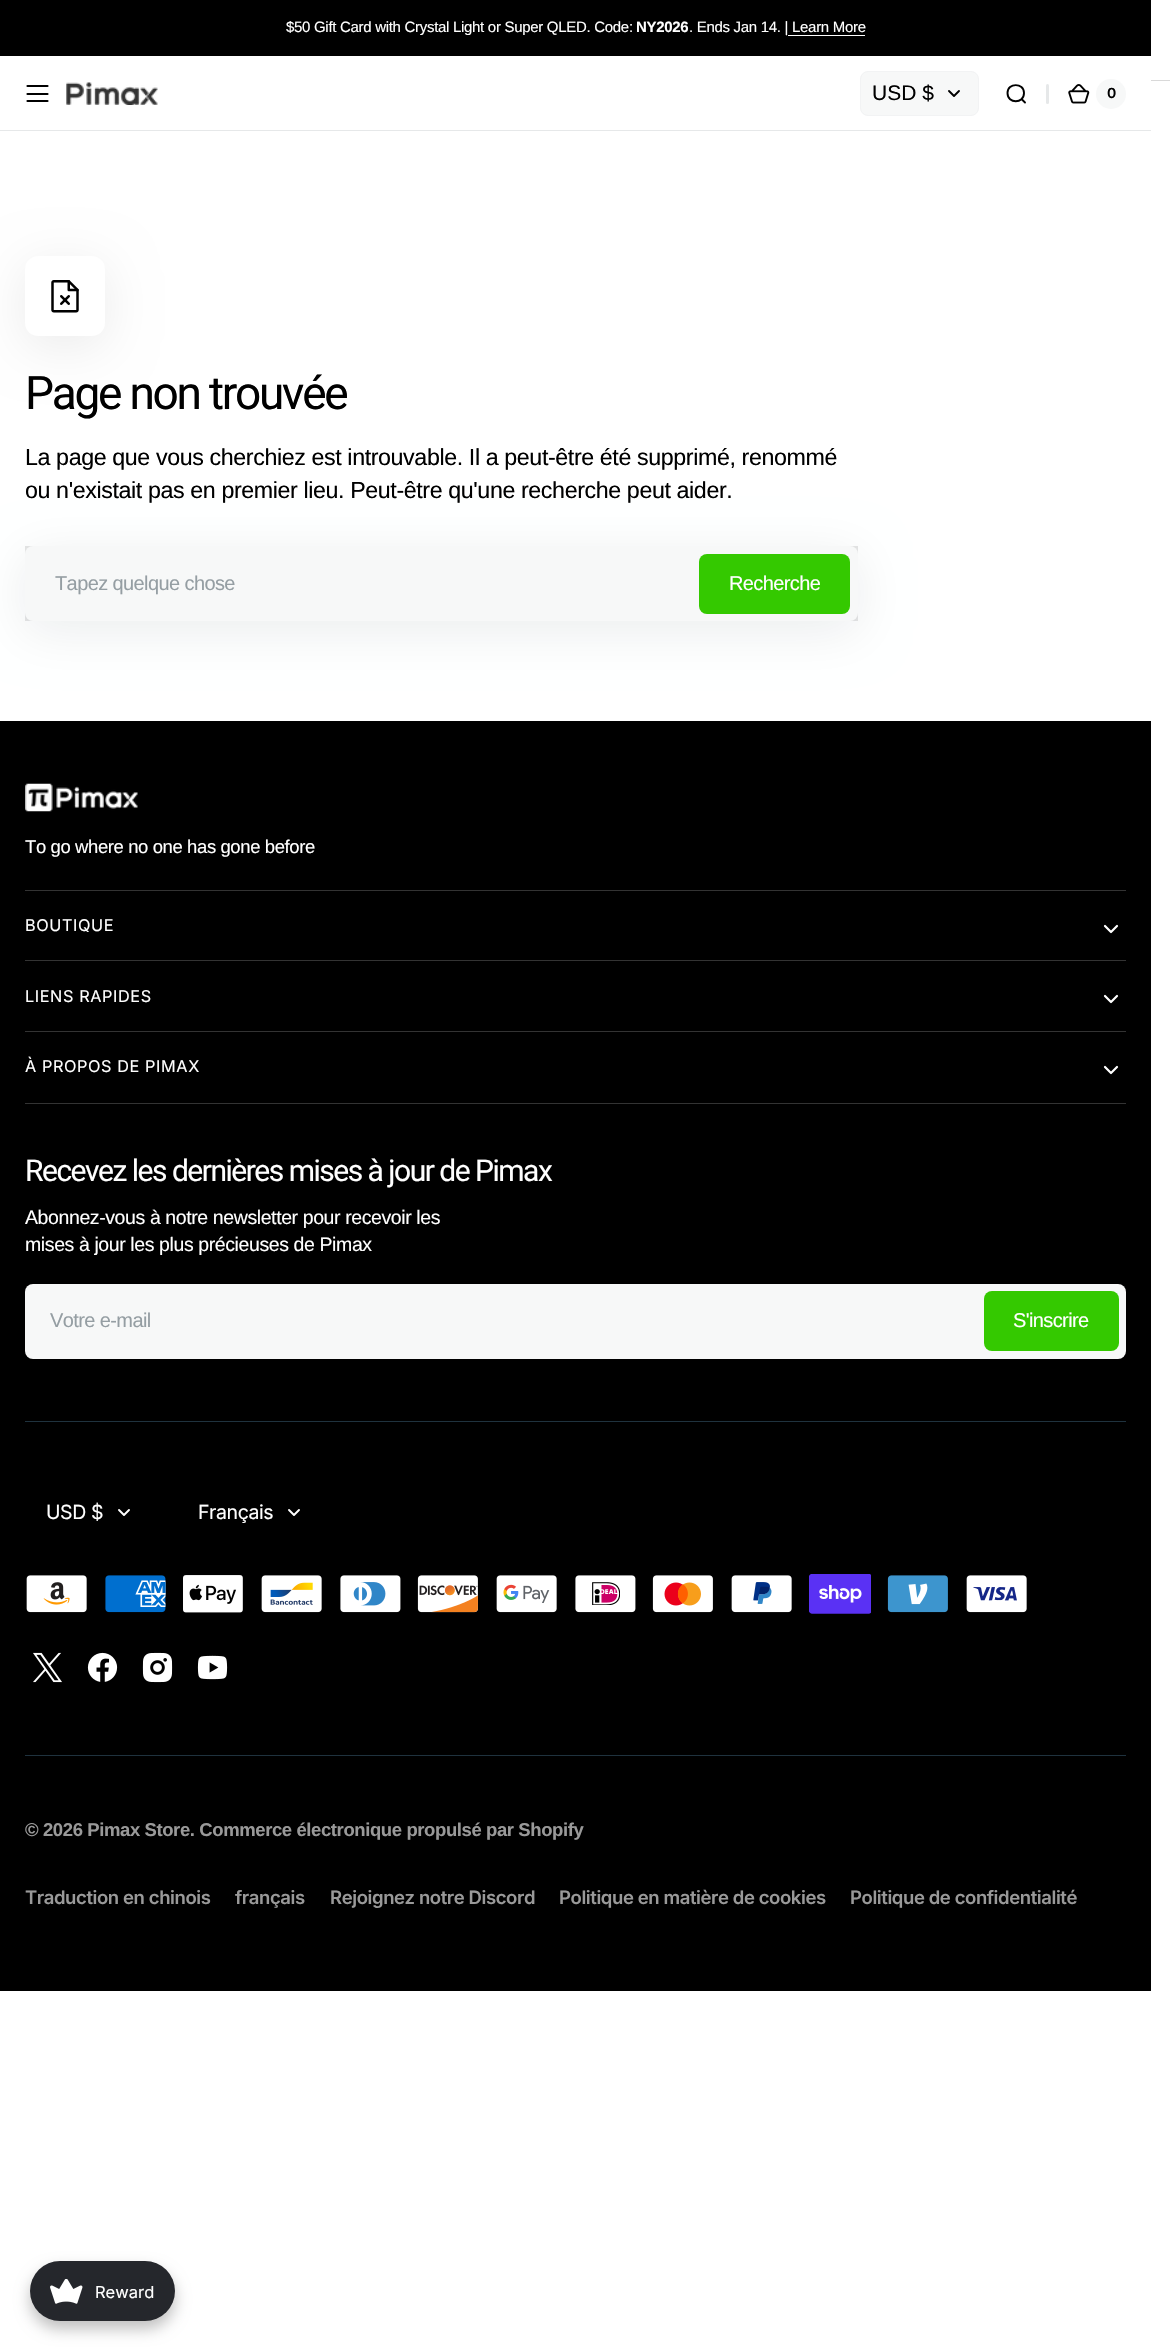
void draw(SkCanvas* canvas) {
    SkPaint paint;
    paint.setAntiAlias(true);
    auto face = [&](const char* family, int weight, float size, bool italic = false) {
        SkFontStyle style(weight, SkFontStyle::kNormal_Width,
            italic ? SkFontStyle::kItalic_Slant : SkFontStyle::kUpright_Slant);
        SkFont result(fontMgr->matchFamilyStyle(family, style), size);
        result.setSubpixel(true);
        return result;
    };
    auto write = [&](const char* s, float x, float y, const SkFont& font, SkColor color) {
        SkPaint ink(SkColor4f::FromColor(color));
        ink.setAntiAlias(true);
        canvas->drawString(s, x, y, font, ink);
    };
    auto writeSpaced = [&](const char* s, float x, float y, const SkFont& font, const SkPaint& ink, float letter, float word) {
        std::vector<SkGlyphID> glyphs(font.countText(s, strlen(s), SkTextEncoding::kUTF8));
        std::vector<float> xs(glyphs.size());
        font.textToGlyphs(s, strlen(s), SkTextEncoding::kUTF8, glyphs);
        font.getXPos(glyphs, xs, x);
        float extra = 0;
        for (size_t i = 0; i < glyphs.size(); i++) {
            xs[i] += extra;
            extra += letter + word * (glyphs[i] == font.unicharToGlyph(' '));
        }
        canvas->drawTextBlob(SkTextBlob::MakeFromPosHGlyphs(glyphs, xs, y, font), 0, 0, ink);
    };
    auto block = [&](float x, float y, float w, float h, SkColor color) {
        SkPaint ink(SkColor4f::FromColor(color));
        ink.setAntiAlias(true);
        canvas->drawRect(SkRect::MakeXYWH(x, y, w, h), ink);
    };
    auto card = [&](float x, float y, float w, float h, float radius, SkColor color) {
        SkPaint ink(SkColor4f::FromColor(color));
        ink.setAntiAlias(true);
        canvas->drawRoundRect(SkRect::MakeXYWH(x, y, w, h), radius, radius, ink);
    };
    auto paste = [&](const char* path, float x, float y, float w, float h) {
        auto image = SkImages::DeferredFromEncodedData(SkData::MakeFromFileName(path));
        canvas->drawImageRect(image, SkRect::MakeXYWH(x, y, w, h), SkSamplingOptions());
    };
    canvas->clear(SK_ColorWHITE);
    block(0, 0, 1151, 56, SK_ColorBLACK);
    auto kFont1 = face("Liberation Sans", 400, 15);
    paint.setColor(SK_ColorWHITE);
    writeSpaced("$50 Gift Card with Crystal Light or Super QLED. Code:", 286, 32, kFont1, paint, -0.3f, 0);
    auto kFont2 = face("Liberation Sans", 700, 15);
    writeSpaced("NY2026", 636, 32, kFont2, paint, -0.3f, 0);
    writeSpaced(". Ends Jan 14. | Learn More", 689, 32, kFont1, paint, -0.3f, 0);
    block(788, 35, 77, 1, SK_ColorWHITE);
    paint.setColor(SkColorSetRGB(217, 217, 217));
    canvas->drawPath(SkPathBuilder().moveTo(1151, 1).lineTo(1151, 81).lineTo(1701, 81).lineTo(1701, 80).lineTo(1151, 80).close().detach(), paint);
    paint.setStyle(SkPaint::kStroke_Style);
    paint.setStrokeWidth(2.2f);
    paint.setStrokeCap(SkPaint::kRound_Cap);
    paint.setColor(SK_ColorBLACK);
    canvas->drawPath(SkPathBuilder().moveTo(27.5f, 86).lineTo(47.5f, 86).moveTo(27.5f, 94).lineTo(47.5f, 94).moveTo(27.5f, 101).lineTo(47.5f, 101).detach(), paint);
    paste("pic1.png", 66, 82, 92, 23);
    paint.setStyle(SkPaint::kFill_Style);
    paint.setColor(SkColorSetRGB(247, 248, 248));
    canvas->drawRoundRect(SkRect::MakeXYWH(860.5f, 71.5f, 118, 44), 7.5f, 7.5f, paint);
    paint.setStyle(SkPaint::kStroke_Style);
    paint.setStrokeWidth(1);
    paint.setStrokeCap(SkPaint::kButt_Cap);
    paint.setColor(SkColorSetRGB(242, 243, 244));
    canvas->drawRoundRect(SkRect::MakeXYWH(860.5f, 71.5f, 118, 44), 7.5f, 7.5f, paint);
    auto kFont3 = face("Liberation Sans", 400, 21);
    write("USD $", 872, 100, kFont3, SK_ColorBLACK);
    paint.setStrokeWidth(1.9f);
    paint.setStrokeCap(SkPaint::kRound_Cap);
    paint.setStrokeJoin(SkPaint::kRound_Join);
    paint.setColor(SK_ColorBLACK);
    canvas->drawPath(SkPathBuilder().moveTo(959, 91).lineTo(954, 96).lineTo(949, 91).detach(), paint);
    paint.setStrokeJoin(SkPaint::kMiter_Join);
    canvas->drawPath(SkPathBuilder().moveTo(1021.5f, 99).lineTo(1025, 102.5f).moveTo(1024, 93).cubicTo(1024, 104, 1007.5f, 104, 1007.5f, 93).cubicTo(1007.5f, 82.5f, 1024, 82.5f, 1024, 93).close().detach(), paint);
    card(1046, 84, 3, 20, 1.5f, SkColorSetRGB(230, 232, 233));
    paste("pic2.png", 1068, 84, 22, 20);
    paint.setStyle(SkPaint::kFill_Style);
    paint.setColor(SkColorSetRGB(247, 248, 248));
    canvas->drawCircle(1111, 94, 15, paint);
    auto kFont4 = face("Inter", 600, 14);
    paint.setColor(SK_ColorBLACK);
    writeSpaced("0", 1107, 98, kFont4, paint, -0.4f, 0);
    block(0, 130, 1151, 1, SkColorSetRGB(230, 232, 233));
    paint.setColor(SkColorSetARGB(20, 0, 0, 0));
    paint.setMaskFilter(SkMaskFilter::MakeBlur(kNormal_SkBlurStyle, 25));
    canvas->drawRoundRect(SkRect::MakeXYWH(25, 266, 80, 80), 13, 13, paint);
    paint.setMaskFilter(nullptr);
    card(25, 256, 80, 80, 13, SK_ColorWHITE);
    paste("pic3.png", 51, 280, 28, 33);
    auto kFont5 = face("Roboto", 400, 46);
    paint.setColor(SK_ColorBLACK);
    writeSpaced("Page non trouvée", 25, 409, kFont5, paint, -2.25f, 0);
    auto kFont6 = face("Liberation Sans", 400, 23.25f);
    writeSpaced("La page que vous cherchiez est introuvable. Il a peut-être été supprimé, renommé", 25, 465, kFont6, paint, -0.4f, 0);
    writeSpaced("ou n'existait pas en premier lieu. Peut-être qu'une recherche peut aider.", 25, 498, kFont6, paint, -0.4f, 0);
    block(25, 546, 833, 75, SkColorSetRGB(229, 229, 229));
    paint.setColor(SkColorSetARGB(20, 1, 22, 36));
    paint.setMaskFilter(SkMaskFilter::MakeBlur(kNormal_SkBlurStyle, 25));
    canvas->drawRoundRect(SkRect::MakeXYWH(25, 556, 833, 75), 8, 8, paint);
    paint.setMaskFilter(nullptr);
    card(25, 546, 833, 75, 8, SkColorSetRGB(247, 248, 248));
    auto kFont7 = face("Liberation Sans", 400, 20);
    paint.setColor(SkColorSetRGB(149, 158, 163));
    writeSpaced("Tapez quelque chose", 55, 590, kFont7, paint, -0.6f, 0);
    card(699, 554, 151, 60, 8, SkColorSetRGB(52, 201, 0));
    paint.setColor(SK_ColorWHITE);
    writeSpaced("Recherche", 729, 590, kFont7, paint, -0.6f, 0);
    block(0, 721, 1151, 1270, SK_ColorBLACK);
    paste("pic4.png", 25, 783, 113, 29);
    auto kFont8 = face("Liberation Sans", 400, 18.5f);
    writeSpaced("To go where no one has gone before", 25, 853, kFont8, paint, -0.4f, 0);
    block(25, 890, 1101, 1, SkColorSetRGB(51, 51, 51));
    block(25, 960, 1101, 1, SkColorSetRGB(51, 51, 51));
    auto kFont9 = face("Inter", 400, 16.25f);
    writeSpaced("BOUTIQUE", 25, 931, kFont9, paint, 0.6f, 0);
    paint.setStyle(SkPaint::kStroke_Style);
    paint.setStrokeWidth(2.2f);
    paint.setStrokeJoin(SkPaint::kRound_Join);
    canvas->drawPath(SkPathBuilder().moveTo(1117, 926).lineTo(1111, 932).lineTo(1105, 926).detach(), paint);
    block(25, 1031, 1101, 1, SkColorSetRGB(51, 51, 51));
    paint.setStyle(SkPaint::kFill_Style);
    writeSpaced("LIENS RAPIDES", 25, 1002, kFont9, paint, 0.6f, 0);
    paint.setStyle(SkPaint::kStroke_Style);
    canvas->drawPath(SkPathBuilder().moveTo(1117, 996).lineTo(1111, 1002).lineTo(1105, 996).detach(), paint);
    block(25, 1103, 1101, 1, SkColorSetRGB(51, 51, 51));
    paint.setStyle(SkPaint::kFill_Style);
    writeSpaced("À PROPOS DE PIMAX", 25, 1072, kFont9, paint, 0.6f, 0);
    paint.setStyle(SkPaint::kStroke_Style);
    canvas->drawPath(SkPathBuilder().moveTo(1117, 1067).lineTo(1111, 1073).lineTo(1105, 1067).detach(), paint);
    auto kFont10 = face("Roboto", 400, 30);
    paint.setStyle(SkPaint::kFill_Style);
    writeSpaced("Recevez les dernières mises à jour de Pimax", 25, 1181, kFont10, paint, -1.5f, 0);
    auto kFont11 = face("Liberation Sans", 400, 19.5f);
    writeSpaced("Abonnez-vous à notre newsletter pour recevoir les", 25, 1224, kFont11, paint, -0.4f, 0);
    writeSpaced("mises à jour les plus précieuses de Pimax", 25, 1251, kFont11, paint, -0.4f, 0);
    card(25, 1284, 1101, 75, 8, SkColorSetRGB(247, 248, 248));
    paint.setColor(SkColorSetRGB(149, 158, 163));
    writeSpaced("Votre e-mail", 50, 1327, kFont7, paint, -0.6f, 0);
    card(984, 1291, 135, 60, 8, SkColorSetRGB(52, 201, 0));
    paint.setColor(SK_ColorWHITE);
    writeSpaced("S'inscrire", 1013, 1327, kFont7, paint, -0.6f, 0);
    block(25, 1421, 1101, 1, SkColorSetRGB(31, 50, 62));
    block(25, 1755, 1101, 1, SkColorSetRGB(31, 50, 62));
    auto kFont12 = face("Inter", 400, 19.5f);
    writeSpaced("USD $", 46, 1519, kFont12, paint, -0.4f, 0);
    paint.setStyle(SkPaint::kStroke_Style);
    paint.setStrokeWidth(1.9f);
    canvas->drawPath(SkPathBuilder().moveTo(129, 1510).lineTo(124, 1515).lineTo(119, 1510).detach(), paint);
    paint.setStyle(SkPaint::kFill_Style);
    writeSpaced("Français", 198, 1519, kFont12, paint, -0.4f, 0);
    paint.setStyle(SkPaint::kStroke_Style);
    canvas->drawPath(SkPathBuilder().moveTo(299, 1510).lineTo(294, 1515).lineTo(289, 1510).detach(), paint);
    paste("pic5.png", 26, 1575, 61, 38);
    paste("pic6.png", 105, 1575, 61, 38);
    paste("pic7.png", 183, 1575, 60, 38);
    paste("pic8.png", 261, 1575, 61, 38);
    paste("pic9.png", 340, 1575, 61, 38);
    paste("pic10.png", 417, 1575, 61, 38);
    paste("pic11.png", 496, 1575, 61, 38);
    paste("pic12.png", 575, 1575, 61, 38);
    paste("pic13.png", 652, 1575, 61, 38);
    paste("pic14.png", 731, 1575, 61, 38);
    paste("pic15.png", 809, 1574, 62, 40);
    paste("pic16.png", 887, 1575, 61, 38);
    paste("pic17.png", 966, 1575, 61, 38);
    paste("pic18.png", 33, 1652, 29, 31);
    paste("pic19.png", 87, 1652, 31, 30);
    paste("pic20.png", 142, 1652, 31, 31);
    paste("pic21.png", 197, 1655, 31, 25);
    auto kFont13 = face("Liberation Sans", 700, 18.5f);
    paint.setStyle(SkPaint::kFill_Style);
    paint.setColor(SkColorSetRGB(153, 153, 153));
    writeSpaced("© 2026 Pimax Store. Commerce électronique propulsé par Shopify", 25, 1836, kFont13, paint, -0.4f, 0);
    auto kFont14 = face("Inter", 600, 18.5f);
    writeSpaced("Traduction en chinois", 25, 1904, kFont14, paint, -0.4f, 0);
    writeSpaced("français", 235, 1904, kFont14, paint, -0.4f, 0);
    writeSpaced("Rejoignez notre Discord", 330, 1904, kFont14, paint, -0.4f, 0);
    writeSpaced("Politique en matière de cookies", 559, 1904, kFont14, paint, -0.4f, 0);
    writeSpaced("Politique de confidentialité", 850, 1904, kFont14, paint, -0.4f, 0);
    paint.setColor(SkColorSetARGB(64, 0, 0, 0));
    paint.setMaskFilter(SkMaskFilter::MakeBlur(kNormal_SkBlurStyle, 7.5f));
    canvas->drawRoundRect(SkRect::MakeXYWH(30, 2269, 145, 60), 30, 30, paint);
    paint.setMaskFilter(nullptr);
    card(30, 2261, 145, 60, 30, SkColorSetRGB(37, 39, 44));
    paste("pic22.png", 50, 2279, 33, 25);
    auto kFont15 = face("Inter", 400, 16.5f);
    write("Reward", 95, 2298, kFont15, SK_ColorWHITE);
}
